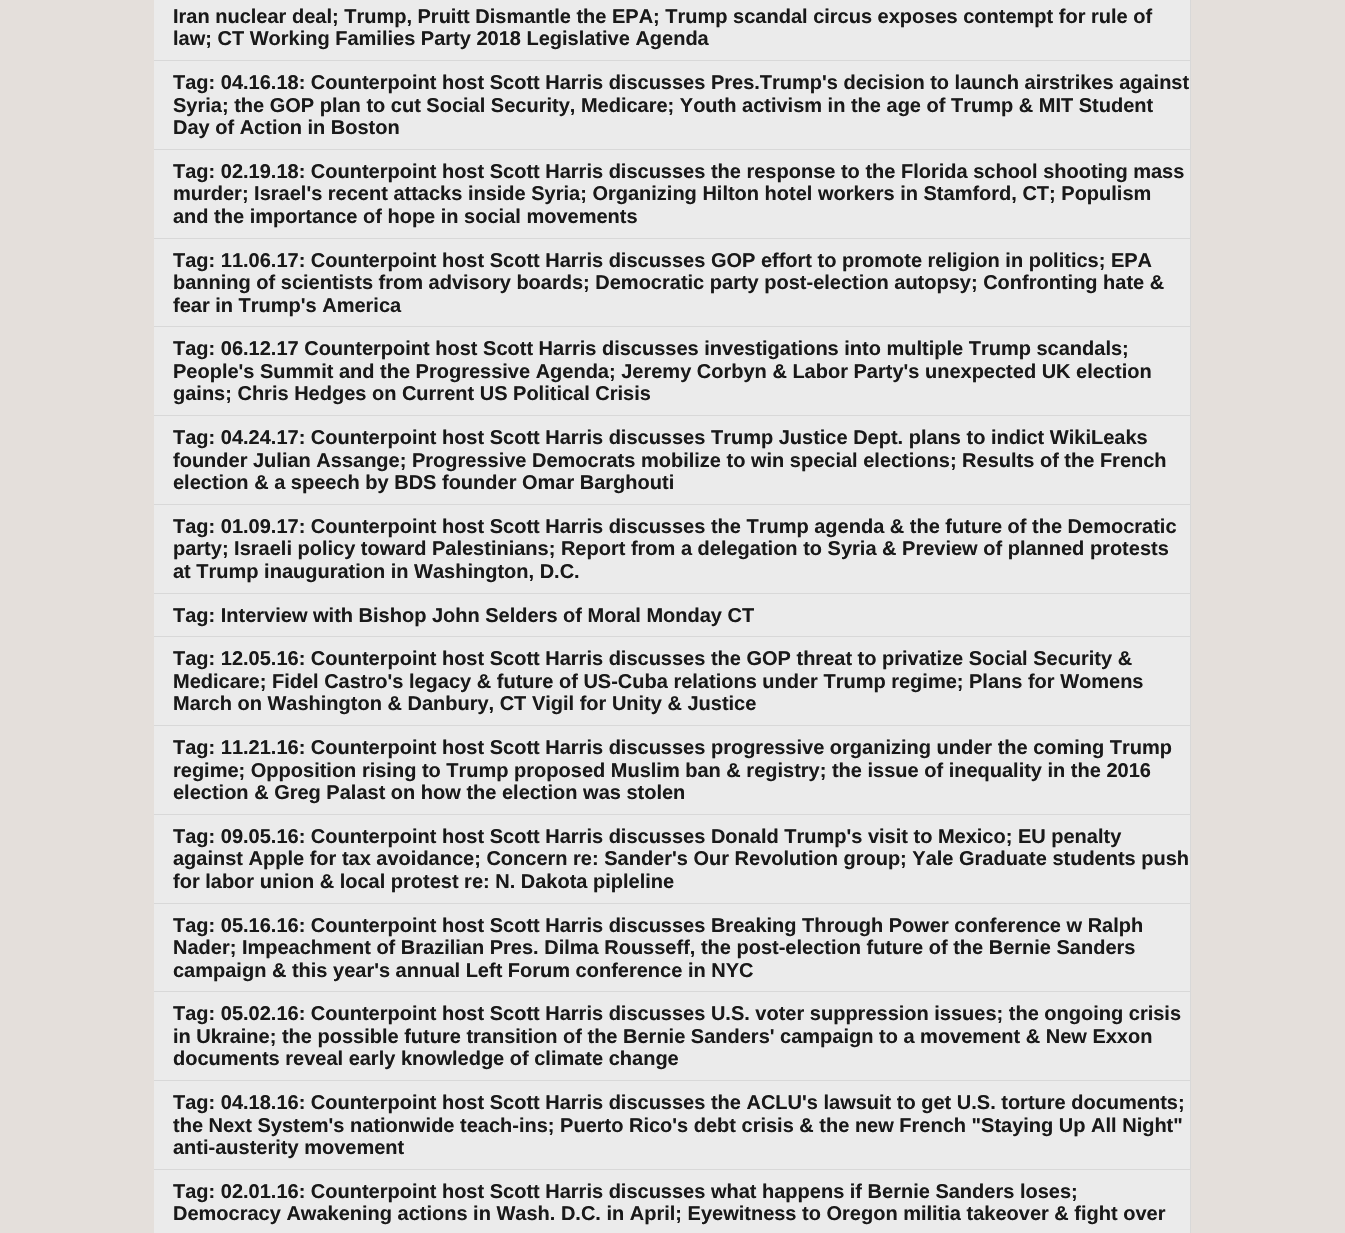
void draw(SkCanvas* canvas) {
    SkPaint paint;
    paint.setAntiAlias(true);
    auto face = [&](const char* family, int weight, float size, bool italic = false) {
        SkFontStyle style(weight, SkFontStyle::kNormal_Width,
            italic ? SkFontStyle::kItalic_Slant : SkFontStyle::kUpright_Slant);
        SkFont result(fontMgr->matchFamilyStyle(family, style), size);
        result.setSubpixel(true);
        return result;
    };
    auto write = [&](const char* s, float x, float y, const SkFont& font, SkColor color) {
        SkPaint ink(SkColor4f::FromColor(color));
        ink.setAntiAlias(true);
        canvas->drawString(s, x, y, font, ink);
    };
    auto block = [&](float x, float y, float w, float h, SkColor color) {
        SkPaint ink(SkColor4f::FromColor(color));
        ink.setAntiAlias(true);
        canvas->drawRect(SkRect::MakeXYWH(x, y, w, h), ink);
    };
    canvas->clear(SkColorSetRGB(228, 223, 219));
    block(154, 0, 1036, 60, SkColorSetRGB(235, 235, 235));
    auto kFont1 = face("Liberation Sans", 700, 20);
    write("Iran nuclear deal; Trump, Pruitt Dismantle the EPA; Trump scandal circus exposes contempt for rule of", 173, 23, kFont1, SkColorSetRGB(25, 25, 25));
    write("law; CT Working Families Party 2018 Legislative Agenda", 173, 45, kFont1, SkColorSetRGB(25, 25, 25));
    block(154, 61, 1036, 88, SkColorSetRGB(235, 235, 235));
    block(154, 60, 1037, 1, SkColorSetRGB(216, 216, 216));
    block(154, 149, 1037, 1, SkColorSetRGB(216, 216, 216));
    block(154, 238, 1037, 1, SkColorSetRGB(216, 216, 216));
    block(154, 239, 1036, 176, SkColorSetRGB(235, 235, 235));
    block(154, 326, 1037, 1, SkColorSetRGB(216, 216, 216));
    block(154, 415, 1037, 1, SkColorSetRGB(216, 216, 216));
    block(154, 504, 1037, 1, SkColorSetRGB(216, 216, 216));
    block(154, 593, 1037, 1, SkColorSetRGB(216, 216, 216));
    block(154, 594, 1036, 131, SkColorSetRGB(235, 235, 235));
    block(154, 636, 1037, 1, SkColorSetRGB(216, 216, 216));
    block(154, 725, 1037, 1, SkColorSetRGB(216, 216, 216));
    block(154, 814, 1037, 1, SkColorSetRGB(216, 216, 216));
    block(154, 903, 1037, 1, SkColorSetRGB(216, 216, 216));
    block(154, 904, 1036, 176, SkColorSetRGB(235, 235, 235));
    block(154, 991, 1037, 1, SkColorSetRGB(216, 216, 216));
    block(154, 1080, 1037, 1, SkColorSetRGB(216, 216, 216));
    block(154, 1169, 1037, 1, SkColorSetRGB(216, 216, 216));
    block(1190, 1169, 1, 64, SkColorSetRGB(216, 216, 216));
    block(1190, 1080, 1, 90, SkColorSetRGB(216, 216, 216));
    block(1190, 991, 1, 90, SkColorSetRGB(216, 216, 216));
    block(1190, 903, 1, 90, SkColorSetRGB(216, 216, 216));
    block(1190, 814, 1, 90, SkColorSetRGB(216, 216, 216));
    block(1190, 725, 1, 90, SkColorSetRGB(216, 216, 216));
    block(1190, 636, 1, 90, SkColorSetRGB(216, 216, 216));
    block(1190, 593, 1, 45, SkColorSetRGB(216, 216, 216));
    block(1190, 504, 1, 90, SkColorSetRGB(216, 216, 216));
    block(1190, 415, 1, 90, SkColorSetRGB(216, 216, 216));
    block(1190, 326, 1, 90, SkColorSetRGB(216, 216, 216));
    block(1190, 238, 1, 90, SkColorSetRGB(216, 216, 216));
    block(1190, 149, 1, 90, SkColorSetRGB(216, 216, 216));
    block(1190, 0, 1, 150, SkColorSetRGB(216, 216, 216));
    write("Tag: 04.16.18: Counterpoint host Scott Harris discusses Pres.Trump's decision to launch airstrikes against", 173, 89, kFont1, SkColorSetRGB(25, 25, 25));
    write("Syria; the GOP plan to cut Social Security, Medicare; Youth activism in the age of Trump & MIT Student", 173, 112, kFont1, SkColorSetRGB(25, 25, 25));
    write("Day of Action in Boston", 173, 134, kFont1, SkColorSetRGB(25, 25, 25));
    block(154, 150, 1036, 88, SkColorSetRGB(235, 235, 235));
    write("Tag: 02.19.18: Counterpoint host Scott Harris discusses the response to the Florida school shooting mass", 173, 178, kFont1, SkColorSetRGB(25, 25, 25));
    write("murder; Israel's recent attacks inside Syria; Organizing Hilton hotel workers in Stamford, CT; Populism", 173, 200, kFont1, SkColorSetRGB(25, 25, 25));
    write("and the importance of hope in social movements", 173, 223, kFont1, SkColorSetRGB(25, 25, 25));
    write("Tag: 11.06.17: Counterpoint host Scott Harris discusses GOP effort to promote religion in politics; EPA", 173, 267, kFont1, SkColorSetRGB(25, 25, 25));
    write("banning of scientists from advisory boards; Democratic party post-election autopsy; Confronting hate &", 173, 289, kFont1, SkColorSetRGB(25, 25, 25));
    write("fear in Trump's America", 173, 312, kFont1, SkColorSetRGB(25, 25, 25));
    write("Tag: 06.12.17 Counterpoint host Scott Harris discusses investigations into multiple Trump scandals;", 173, 355, kFont1, SkColorSetRGB(25, 25, 25));
    write("People's Summit and the Progressive Agenda; Jeremy Corbyn & Labor Party's unexpected UK election", 173, 378, kFont1, SkColorSetRGB(25, 25, 25));
    write("gains; Chris Hedges on Current US Political Crisis", 173, 400, kFont1, SkColorSetRGB(25, 25, 25));
    block(154, 416, 1036, 88, SkColorSetRGB(235, 235, 235));
    write("Tag: 04.24.17: Counterpoint host Scott Harris discusses Trump Justice Dept. plans to indict WikiLeaks", 173, 444, kFont1, SkColorSetRGB(25, 25, 25));
    write("founder Julian Assange; Progressive Democrats mobilize to win special elections; Results of the French", 173, 467, kFont1, SkColorSetRGB(25, 25, 25));
    write("election & a speech by BDS founder Omar Barghouti", 173, 489, kFont1, SkColorSetRGB(25, 25, 25));
    block(154, 505, 1036, 88, SkColorSetRGB(235, 235, 235));
    write("Tag: 01.09.17: Counterpoint host Scott Harris discusses the Trump agenda & the future of the Democratic", 173, 533, kFont1, SkColorSetRGB(25, 25, 25));
    write("party; Israeli policy toward Palestinians; Report from a delegation to Syria & Preview of planned protests", 173, 555, kFont1, SkColorSetRGB(25, 25, 25));
    write("at Trump inauguration in Washington, D.C.", 173, 578, kFont1, SkColorSetRGB(25, 25, 25));
    write("Tag: Interview with Bishop John Selders of Moral Monday CT", 173, 622, kFont1, SkColorSetRGB(25, 25, 25));
    write("Tag: 12.05.16: Counterpoint host Scott Harris discusses the GOP threat to privatize Social Security &", 173, 665, kFont1, SkColorSetRGB(25, 25, 25));
    write("Medicare; Fidel Castro's legacy & future of US-Cuba relations under Trump regime; Plans for Womens", 173, 688, kFont1, SkColorSetRGB(25, 25, 25));
    write("March on Washington & Danbury, CT Vigil for Unity & Justice", 173, 710, kFont1, SkColorSetRGB(25, 25, 25));
    block(154, 726, 1036, 88, SkColorSetRGB(235, 235, 235));
    write("Tag: 11.21.16: Counterpoint host Scott Harris discusses progressive organizing under the coming Trump", 173, 754, kFont1, SkColorSetRGB(25, 25, 25));
    write("regime; Opposition rising to Trump proposed Muslim ban & registry; the issue of inequality in the 2016", 173, 777, kFont1, SkColorSetRGB(25, 25, 25));
    write("election & Greg Palast on how the election was stolen", 173, 799, kFont1, SkColorSetRGB(25, 25, 25));
    block(154, 815, 1036, 88, SkColorSetRGB(235, 235, 235));
    write("Tag: 09.05.16: Counterpoint host Scott Harris discusses Donald Trump's visit to Mexico; EU penalty", 173, 843, kFont1, SkColorSetRGB(25, 25, 25));
    write("against Apple for tax avoidance; Concern re: Sander's Our Revolution group; Yale Graduate students push", 173, 865, kFont1, SkColorSetRGB(25, 25, 25));
    write("for labor union & local protest re: N. Dakota pipleline", 173, 888, kFont1, SkColorSetRGB(25, 25, 25));
    write("Tag: 05.16.16: Counterpoint host Scott Harris discusses Breaking Through Power conference w Ralph", 173, 932, kFont1, SkColorSetRGB(25, 25, 25));
    write("Nader; Impeachment of Brazilian Pres. Dilma Rousseff, the post-election future of the Bernie Sanders", 173, 954, kFont1, SkColorSetRGB(25, 25, 25));
    write("campaign & this year's annual Left Forum conference in NYC", 173, 977, kFont1, SkColorSetRGB(25, 25, 25));
    write("Tag: 05.02.16: Counterpoint host Scott Harris discusses U.S. voter suppression issues; the ongoing crisis", 173, 1020, kFont1, SkColorSetRGB(25, 25, 25));
    write("in Ukraine; the possible future transition of the Bernie Sanders' campaign to a movement & New Exxon", 173, 1043, kFont1, SkColorSetRGB(25, 25, 25));
    write("documents reveal early knowledge of climate change", 173, 1065, kFont1, SkColorSetRGB(25, 25, 25));
    block(154, 1081, 1036, 88, SkColorSetRGB(235, 235, 235));
    write("Tag: 04.18.16: Counterpoint host Scott Harris discusses the ACLU's lawsuit to get U.S. torture documents;", 173, 1109, kFont1, SkColorSetRGB(25, 25, 25));
    write("the Next System's nationwide teach-ins; Puerto Rico's debt crisis & the new French \"Staying Up All Night\"", 173, 1132, kFont1, SkColorSetRGB(25, 25, 25));
    write("anti-austerity movement", 173, 1154, kFont1, SkColorSetRGB(25, 25, 25));
    block(154, 1170, 1036, 63, SkColorSetRGB(235, 235, 235));
    write("Tag: 02.01.16: Counterpoint host Scott Harris discusses what happens if Bernie Sanders loses;", 173, 1198, kFont1, SkColorSetRGB(25, 25, 25));
    write("Democracy Awakening actions in Wash. D.C. in April; Eyewitness to Oregon militia takeover & fight over", 173, 1220, kFont1, SkColorSetRGB(25, 25, 25));
}
